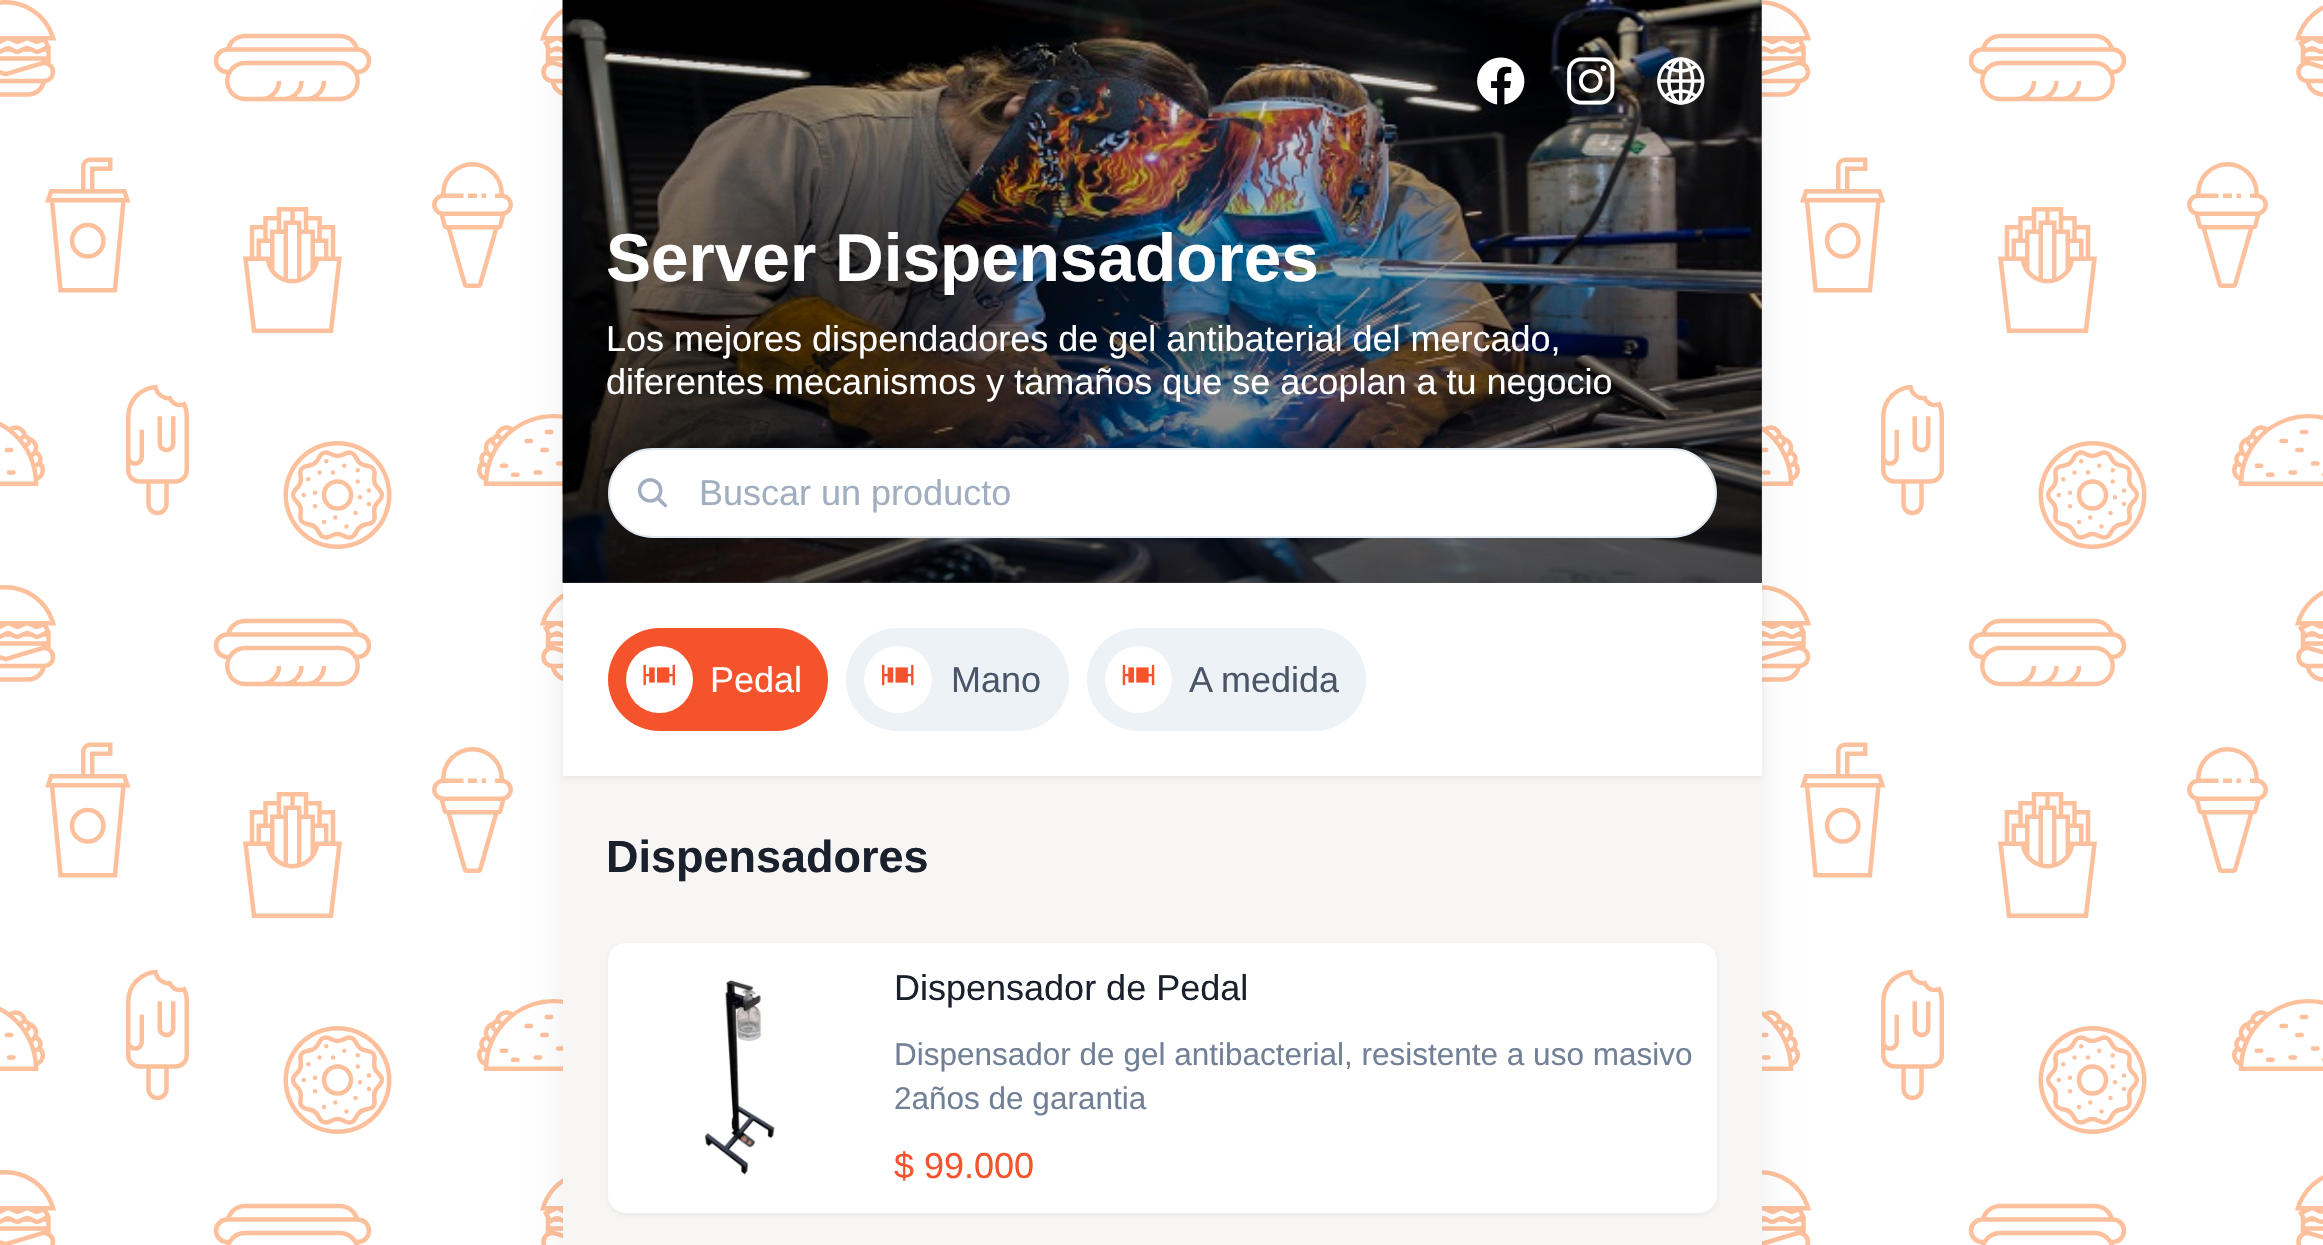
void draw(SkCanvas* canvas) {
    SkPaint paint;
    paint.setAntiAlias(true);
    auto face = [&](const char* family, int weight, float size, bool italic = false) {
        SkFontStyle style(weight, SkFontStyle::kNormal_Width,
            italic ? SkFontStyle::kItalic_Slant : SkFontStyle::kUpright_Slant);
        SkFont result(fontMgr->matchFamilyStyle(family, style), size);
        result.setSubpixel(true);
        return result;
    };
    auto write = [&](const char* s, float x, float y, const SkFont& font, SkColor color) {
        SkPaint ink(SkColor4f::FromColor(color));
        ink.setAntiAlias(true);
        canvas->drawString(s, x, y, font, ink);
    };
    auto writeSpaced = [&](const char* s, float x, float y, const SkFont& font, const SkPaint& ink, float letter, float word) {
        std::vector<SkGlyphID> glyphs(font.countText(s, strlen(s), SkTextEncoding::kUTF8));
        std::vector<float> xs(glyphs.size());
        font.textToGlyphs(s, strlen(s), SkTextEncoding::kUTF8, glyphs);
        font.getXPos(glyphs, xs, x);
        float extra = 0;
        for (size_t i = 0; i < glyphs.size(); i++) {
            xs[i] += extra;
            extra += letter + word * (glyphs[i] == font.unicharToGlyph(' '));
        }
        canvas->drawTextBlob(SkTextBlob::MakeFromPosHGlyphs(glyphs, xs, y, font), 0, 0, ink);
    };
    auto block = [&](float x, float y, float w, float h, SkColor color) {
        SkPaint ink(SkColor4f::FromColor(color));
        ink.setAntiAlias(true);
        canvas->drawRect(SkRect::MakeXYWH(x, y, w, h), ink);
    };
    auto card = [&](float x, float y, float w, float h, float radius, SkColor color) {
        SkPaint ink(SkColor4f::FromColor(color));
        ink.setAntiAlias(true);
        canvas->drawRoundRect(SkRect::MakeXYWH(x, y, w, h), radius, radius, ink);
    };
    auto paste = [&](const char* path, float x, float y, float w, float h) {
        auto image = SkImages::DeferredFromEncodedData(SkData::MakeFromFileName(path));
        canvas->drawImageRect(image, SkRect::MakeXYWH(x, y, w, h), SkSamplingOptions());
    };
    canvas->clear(SK_ColorWHITE);
    paste("pic1.png", 0, 0, 2323, 1245);
    paint.setColor(SkColorSetARGB(26, 0, 0, 0));
    paint.setMaskFilter(SkMaskFilter::MakeBlur(kNormal_SkBlurStyle, 17));
    canvas->drawRect(SkRect::MakeXYWH(569, 29, 1186, 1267), paint);
    paint.setMaskFilter(nullptr);
    block(563, 0, 1199, 583, SK_ColorWHITE);
    paste("pic2.png", 562, 0, 1200, 583);
    {
        const SkColor colors[] = {SkColorSetARGB(163, 0, 0, 0), SkColorSetARGB(10, 0, 0, 0)};
        const float stops[] = {0, 1};
        const SkPoint ends[] = {{1162, 583}, {1162, 0}};
        paint.setShader(SkGradientShader::MakeLinear(ends, colors, stops, 2, SkTileMode::kClamp));
        paint.setAlpha(255);
    }
    canvas->drawRect(SkRect::MakeXYWH(563, 0, 1199, 583), paint);
    paste("pic3.png", 1477, 57, 48, 48);
    paste("pic4.png", 1567, 57, 48, 48);
    paste("pic5.png", 1657, 57, 48, 48);
    auto kFont1 = face("Liberation Sans", 700, 67.5f);
    write("Server Dispensadores", 606, 281, kFont1, SK_ColorWHITE);
    auto kFont2 = face("Liberation Sans", 400, 36);
    write("Los mejores dispendadores de gel antibaterial del mercado,", 606, 351, kFont2, SK_ColorWHITE);
    write("diferentes mecanismos y tamaños que se acoplan a tu negocio", 606, 394, kFont2, SK_ColorWHITE);
    paint.setShader(nullptr);
    paint.setColor(SK_ColorWHITE);
    canvas->drawRoundRect(SkRect::MakeXYWH(609, 449, 1107, 88), 44, 44, paint);
    paint.setStyle(SkPaint::kStroke_Style);
    paint.setStrokeWidth(2);
    paint.setColor(SkColorSetRGB(226, 232, 240));
    canvas->drawRoundRect(SkRect::MakeXYWH(609, 449, 1107, 88), 44, 44, paint);
    paste("pic6.png", 637, 478, 30, 30);
    write("Buscar un producto", 699, 505, kFont2, SkColorSetRGB(160, 174, 192));
    block(563, 776, 1199, 469, SkColorSetRGB(248, 246, 244));
    paint.setStyle(SkPaint::kFill_Style);
    paint.setColor(SkColorSetARGB(13, 0, 0, 0));
    paint.setMaskFilter(SkMaskFilter::MakeBlur(kNormal_SkBlurStyle, 2));
    canvas->drawRect(SkRect::MakeXYWH(563, 585, 1199, 194), paint);
    paint.setMaskFilter(nullptr);
    block(563, 583, 1199, 193, SK_ColorWHITE);
    card(608, 628, 220, 103, 51.5f, SkColorSetRGB(245, 83, 43));
    paint.setColor(SK_ColorWHITE);
    canvas->drawCircle(659.5f, 679.5f, 33.5f, paint);
    paste("pic7.png", 643, 664, 32, 22);
    write("Pedal", 710, 692, kFont2, SK_ColorWHITE);
    card(846, 628, 223, 103, 51.5f, SkColorSetRGB(237, 242, 247));
    card(864, 646, 68, 67, 33.5f, SK_ColorWHITE);
    paste("pic8.png", 882, 664, 32, 22);
    write("Mano", 951, 692, kFont2, SkColorSetRGB(74, 85, 104));
    card(1087, 628, 279, 103, 51.5f, SkColorSetRGB(237, 242, 247));
    canvas->drawCircle(1138.5f, 679.5f, 33.5f, paint);
    paste("pic9.png", 1122, 664, 33, 22);
    paint.setColor(SkColorSetRGB(74, 85, 104));
    writeSpaced("A medida", 1189, 692, kFont2, paint, 0, -2);
    auto kFont3 = face("Liberation Sans", 700, 45);
    write("Dispensadores", 606, 872, kFont3, SkColorSetRGB(26, 32, 44));
    paint.setColor(SkColorSetARGB(13, 0, 0, 0));
    paint.setMaskFilter(SkMaskFilter::MakeBlur(kNormal_SkBlurStyle, 2));
    canvas->drawRoundRect(SkRect::MakeXYWH(608, 945, 1109, 270), 18, 18, paint);
    paint.setMaskFilter(nullptr);
    card(608, 943, 1109, 270, 18, SK_ColorWHITE);
    paste("pic10.png", 704, 980, 71, 195);
    write("Dispensador de Pedal", 894, 1000, kFont2, SkColorSetRGB(26, 32, 44));
    auto kFont4 = face("Liberation Sans", 400, 31.5f);
    write("Dispensador de gel antibacterial, resistente a uso masivo", 894, 1065, kFont4, SkColorSetRGB(113, 128, 150));
    write("2años de garantia", 894, 1109, kFont4, SkColorSetRGB(113, 128, 150));
    write("$ 99.000", 894, 1178, kFont2, SkColorSetRGB(245, 83, 43));
}
